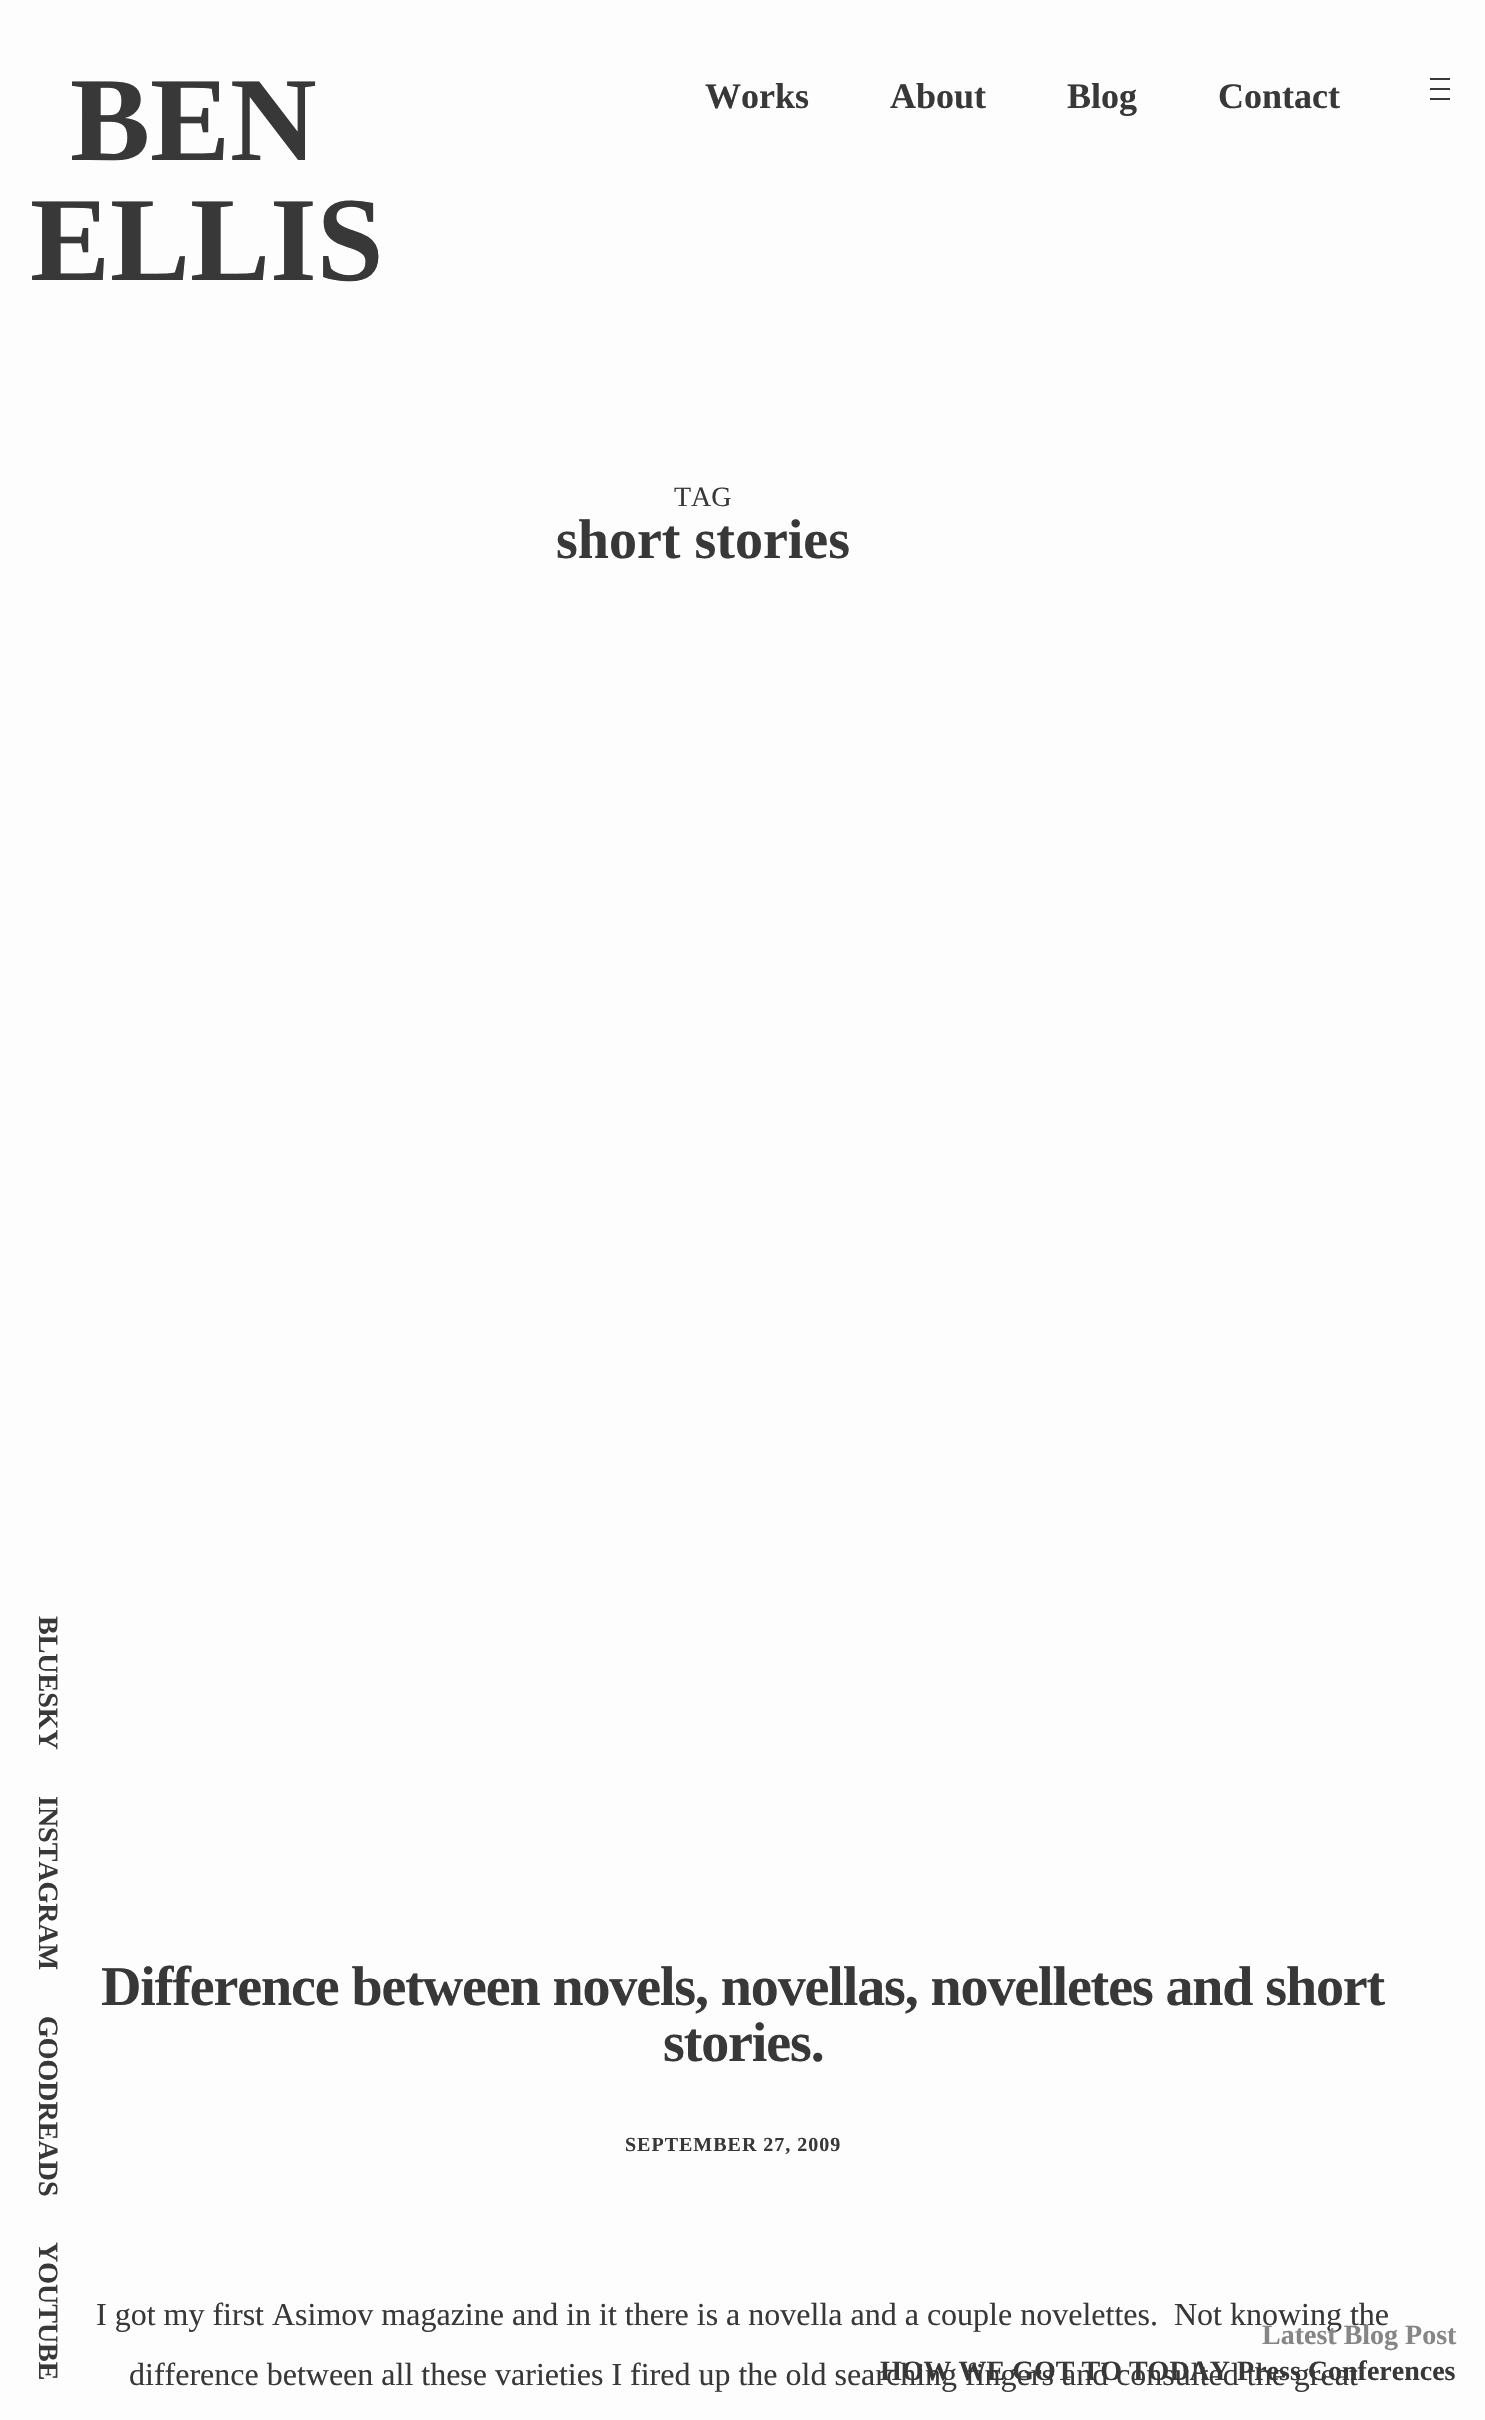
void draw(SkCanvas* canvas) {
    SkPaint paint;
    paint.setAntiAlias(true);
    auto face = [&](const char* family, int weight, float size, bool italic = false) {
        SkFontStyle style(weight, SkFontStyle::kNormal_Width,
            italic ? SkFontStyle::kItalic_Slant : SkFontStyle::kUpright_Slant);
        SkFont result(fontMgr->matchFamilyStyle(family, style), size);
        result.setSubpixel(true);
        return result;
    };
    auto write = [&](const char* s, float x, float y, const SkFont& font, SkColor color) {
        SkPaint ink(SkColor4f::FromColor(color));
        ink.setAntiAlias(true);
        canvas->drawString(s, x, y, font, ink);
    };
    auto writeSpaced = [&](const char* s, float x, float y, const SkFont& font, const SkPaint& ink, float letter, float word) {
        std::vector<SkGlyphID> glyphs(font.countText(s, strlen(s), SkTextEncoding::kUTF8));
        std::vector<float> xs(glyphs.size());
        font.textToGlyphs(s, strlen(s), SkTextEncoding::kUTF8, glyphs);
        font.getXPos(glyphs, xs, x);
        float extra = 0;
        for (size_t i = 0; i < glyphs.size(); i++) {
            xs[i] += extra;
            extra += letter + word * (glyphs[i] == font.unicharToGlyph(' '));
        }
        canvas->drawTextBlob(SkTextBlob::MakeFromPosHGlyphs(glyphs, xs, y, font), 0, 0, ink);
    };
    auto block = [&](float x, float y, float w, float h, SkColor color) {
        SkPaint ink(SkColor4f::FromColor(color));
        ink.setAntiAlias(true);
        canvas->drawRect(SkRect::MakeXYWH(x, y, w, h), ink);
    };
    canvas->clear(SkColorSetRGB(253, 253, 253));
    auto kFont1 = face("Liberation Serif", 700, 120);
    write("BEN", 70, 160, kFont1, SkColorSetRGB(56, 56, 56));
    write("ELLIS", 30, 280, kFont1, SkColorSetRGB(56, 56, 56));
    auto kFont2 = face("Liberation Serif", 700, 36);
    write("Works", 705, 108, kFont2, SkColorSetRGB(56, 56, 56));
    write("About", 890, 108, kFont2, SkColorSetRGB(56, 56, 56));
    write("Blog", 1067, 108, kFont2, SkColorSetRGB(56, 56, 56));
    write("Contact", 1218, 108, kFont2, SkColorSetRGB(56, 56, 56));
    block(1430, 78, 20, 2, SkColorSetRGB(56, 56, 56));
    block(1430, 88, 20, 2, SkColorSetRGB(56, 56, 56));
    block(1430, 98, 20, 2, SkColorSetRGB(56, 56, 56));
    auto kFont3 = face("Liberation Serif", 700, 28);
    canvas->save();
    canvas->rotate(90, 39, 1616);
    write("BLUESKY", 39, 1616, kFont3, SkColorSetRGB(56, 56, 56));
    canvas->restore();
    canvas->save();
    canvas->rotate(90, 39, 1796);
    write("INSTAGRAM", 39, 1796, kFont3, SkColorSetRGB(56, 56, 56));
    canvas->restore();
    canvas->save();
    canvas->rotate(90, 39, 2016);
    write("GOODREADS", 39, 2016, kFont3, SkColorSetRGB(56, 56, 56));
    canvas->restore();
    canvas->save();
    canvas->rotate(90, 39, 2242);
    write("YOUTUBE", 39, 2242, kFont3, SkColorSetRGB(56, 56, 56));
    canvas->restore();
    auto kFont4 = face("Liberation Serif", 400, 28);
    write("TAG", 674, 506, kFont4, SkColorSetRGB(56, 56, 56));
    auto kFont5 = face("Liberation Serif", 700, 56);
    write("short stories", 556, 558, kFont5, SkColorSetRGB(56, 56, 56));
    paint.setColor(SkColorSetRGB(56, 56, 56));
    writeSpaced("Difference between novels, novellas, novelletes and short", 101, 2005, kFont5, paint, -1.12f, 0);
    writeSpaced("stories.", 663, 2061, kFont5, paint, -1.12f, 0);
    auto kFont6 = face("Liberation Serif", 700, 20);
    writeSpaced("SEPTEMBER 27, 2009", 625, 2151, kFont6, paint, 1, 0);
    auto kFont7 = face("Liberation Serif", 400, 32);
    write("I got my first Asimov magazine and in it there is a novella and a couple novelettes.  Not knowing the", 96, 2325, kFont7, SkColorSetRGB(56, 56, 56));
    write("difference between all these varieties I fired up the old searching fingers and consulted the great", 129, 2385, kFont7, SkColorSetRGB(56, 56, 56));
    write("Latest Blog Post", 1262, 2344, kFont3, SkColorSetRGB(134, 134, 134));
    write("HOW WE GOT TO TODAY Press Conferences", 880, 2380, kFont3, SkColorSetRGB(56, 56, 56));
}
